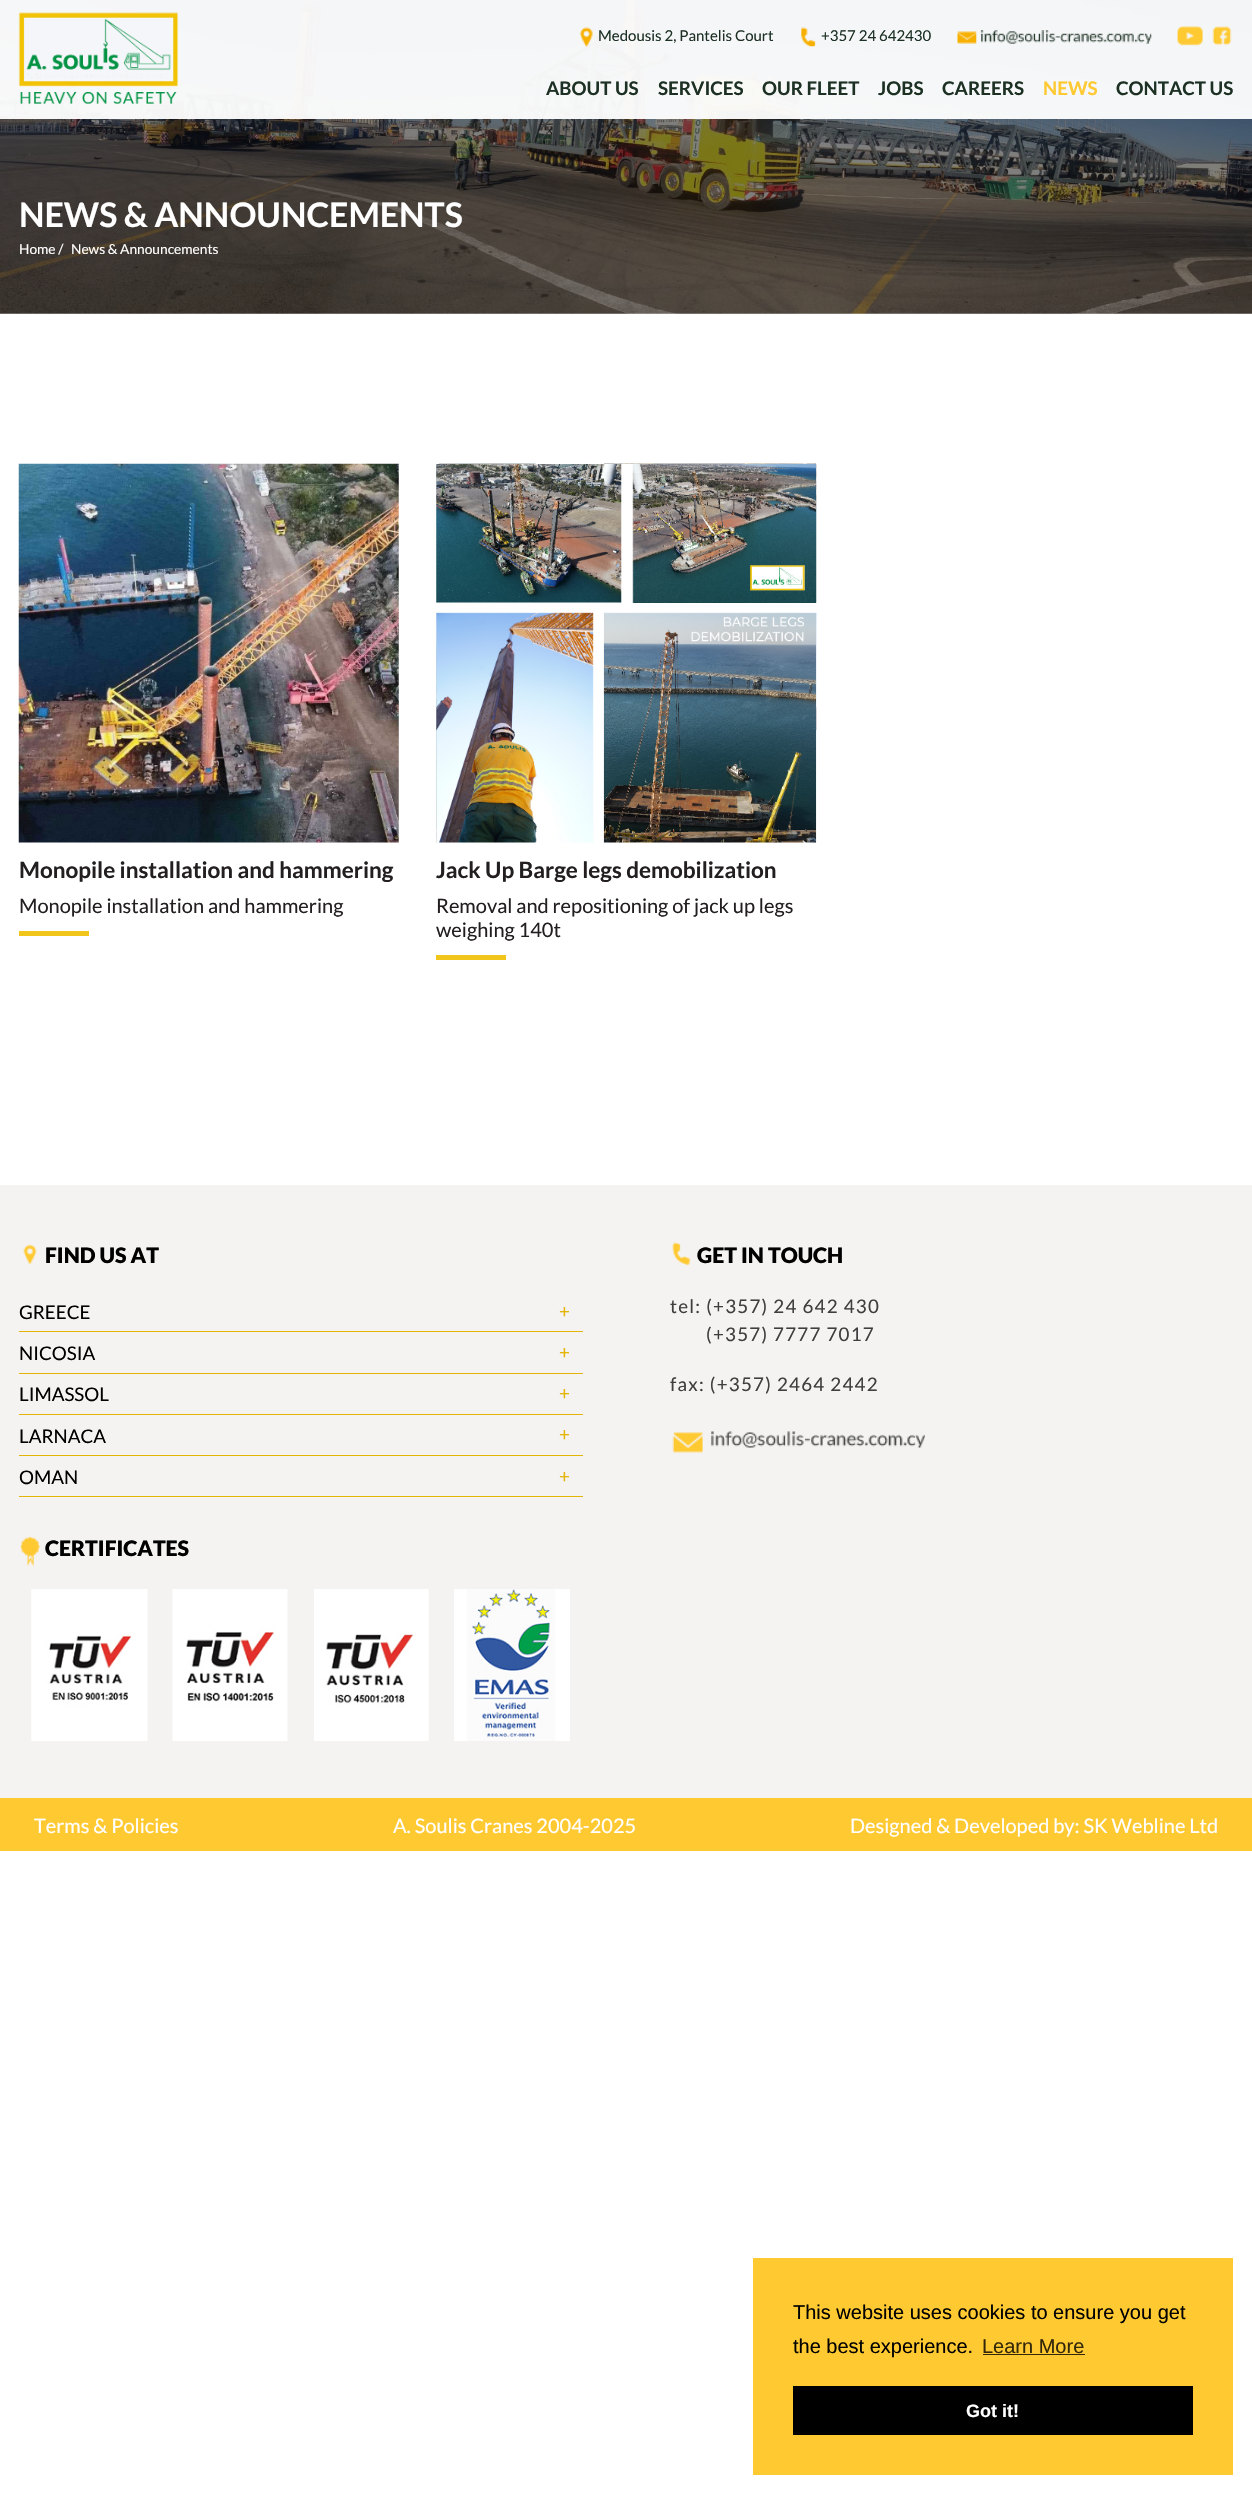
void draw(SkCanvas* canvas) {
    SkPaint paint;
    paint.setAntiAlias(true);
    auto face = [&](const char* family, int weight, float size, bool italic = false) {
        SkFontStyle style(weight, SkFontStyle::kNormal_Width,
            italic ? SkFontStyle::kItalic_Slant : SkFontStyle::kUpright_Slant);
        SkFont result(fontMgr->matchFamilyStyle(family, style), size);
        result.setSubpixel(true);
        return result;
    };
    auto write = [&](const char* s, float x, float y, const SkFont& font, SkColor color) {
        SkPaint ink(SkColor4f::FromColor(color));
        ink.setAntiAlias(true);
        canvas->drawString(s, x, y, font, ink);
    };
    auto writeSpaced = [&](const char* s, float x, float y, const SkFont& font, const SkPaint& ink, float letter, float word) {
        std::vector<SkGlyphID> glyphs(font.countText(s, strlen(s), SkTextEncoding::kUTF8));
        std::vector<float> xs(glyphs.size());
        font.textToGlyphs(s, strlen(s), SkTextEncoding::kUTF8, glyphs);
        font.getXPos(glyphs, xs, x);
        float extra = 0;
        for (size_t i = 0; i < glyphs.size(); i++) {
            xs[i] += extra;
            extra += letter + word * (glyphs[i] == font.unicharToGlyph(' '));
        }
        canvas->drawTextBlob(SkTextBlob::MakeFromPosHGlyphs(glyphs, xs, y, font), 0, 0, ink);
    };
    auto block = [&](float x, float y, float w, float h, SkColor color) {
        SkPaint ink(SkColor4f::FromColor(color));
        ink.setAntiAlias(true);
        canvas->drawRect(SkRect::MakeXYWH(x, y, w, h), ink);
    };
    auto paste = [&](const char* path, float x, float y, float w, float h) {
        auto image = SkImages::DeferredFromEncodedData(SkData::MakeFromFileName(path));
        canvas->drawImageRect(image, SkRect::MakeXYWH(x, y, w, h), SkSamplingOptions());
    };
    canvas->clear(SK_ColorWHITE);
    paste("pic8.png", 0, 0, 1252, 314);
    block(0, 0, 1252, 119, SkColorSetARGB(242, 255, 255, 255));
    paste("pic1.png", 18, 12, 160, 92);
    paste("pic2.png", 579, 27, 14, 20);
    auto kFont1 = face("Lato", 400, 15);
    write("Medousis 2, Pantelis Court", 598, 41, kFont1, SkColorSetRGB(28, 48, 35));
    paste("pic3.png", 801, 27, 15, 20);
    write("+357 24 642430", 821, 41, kFont1, SkColorSetRGB(28, 48, 35));
    paste("pic4.png", 957, 31, 20, 13);
    paste("pic5.png", 980, 30, 172, 14);
    paste("pic6.png", 1177, 26, 26, 20);
    paste("pic7.png", 1212, 26, 20, 20);
    auto kFont2 = face("Lato", 700, 18.75f);
    write("ABOUT US", 546, 95, kFont2, SkColorSetRGB(28, 48, 35));
    write("SERVICES", 658, 95, kFont2, SkColorSetRGB(28, 48, 35));
    write("OUR FLEET", 762, 95, kFont2, SkColorSetRGB(28, 48, 35));
    write("JOBS", 878, 95, kFont2, SkColorSetRGB(28, 48, 35));
    write("CAREERS", 942, 95, kFont2, SkColorSetRGB(28, 48, 35));
    write("NEWS", 1043, 95, kFont2, SkColorSetRGB(255, 201, 49));
    write("CONTACT US", 1116, 95, kFont2, SkColorSetRGB(28, 48, 35));
    auto kFont3 = face("Lato", 700, 33.75f);
    write("NEWS & ANNOUNCEMENTS", 19, 227, kFont3, SK_ColorWHITE);
    auto kFont4 = face("Lato", 400, 13.75f);
    write("Home /", 19, 254, kFont4, SK_ColorWHITE);
    write("News & Announcements", 71, 254, kFont4, SK_ColorWHITE);
    paste("pic9.png", 18, 463, 381, 380);
    auto kFont5 = face("Lato", 700, 22.5f);
    write("Monopile installation and hammering", 19, 878, kFont5, SkColorSetRGB(35, 31, 32));
    auto kFont6 = face("Lato", 400, 20);
    write("Monopile installation and hammering", 19, 913, kFont6, SkColorSetRGB(35, 31, 32));
    block(19, 931, 70, 5, SkColorSetRGB(241, 197, 25));
    paste("pic10.png", 436, 463, 381, 380);
    write("Jack Up Barge legs demobilization", 436, 878, kFont5, SkColorSetRGB(35, 31, 32));
    write("Removal and repositioning of jack up legs", 436, 913, kFont6, SkColorSetRGB(35, 31, 32));
    write("weighing 140t", 436, 937, kFont6, SkColorSetRGB(35, 31, 32));
    block(436, 955, 70, 5, SkColorSetRGB(241, 197, 25));
    block(0, 1185, 1252, 613, SkColorSetRGB(244, 243, 242));
    paste("pic11.png", 23, 1244, 14, 20);
    auto kFont7 = face("Lato", 900, 21.25f);
    write("FIND US AT", 45, 1263, kFont7, SK_ColorBLACK);
    block(19, 1331, 564, 1, SkColorSetRGB(228, 181, 4));
    auto kFont8 = face("Lato", 400, 18.75f);
    write("GREECE", 19, 1319, kFont8, SK_ColorBLACK);
    write("+", 559, 1318, kFont8, SkColorSetRGB(228, 181, 4));
    block(19, 1373, 564, 1, SkColorSetRGB(228, 181, 4));
    write("NICOSIA", 19, 1360, kFont8, SK_ColorBLACK);
    write("+", 559, 1359, kFont8, SkColorSetRGB(228, 181, 4));
    block(19, 1414, 564, 1, SkColorSetRGB(228, 181, 4));
    write("LIMASSOL", 19, 1401, kFont8, SK_ColorBLACK);
    write("+", 559, 1400, kFont8, SkColorSetRGB(228, 181, 4));
    block(19, 1455, 564, 1, SkColorSetRGB(228, 181, 4));
    write("LARNACA", 19, 1443, kFont8, SK_ColorBLACK);
    write("+", 559, 1441, kFont8, SkColorSetRGB(228, 181, 4));
    block(19, 1496, 564, 1, SkColorSetRGB(228, 181, 4));
    write("OMAN", 19, 1484, kFont8, SK_ColorBLACK);
    write("+", 559, 1483, kFont8, SkColorSetRGB(228, 181, 4));
    paste("pic12.png", 672, 1242, 19, 24);
    write("GET IN TOUCH", 697, 1263, kFont7, SK_ColorBLACK);
    paint.setColor(SkColorSetRGB(63, 63, 63));
    writeSpaced("tel: (+357) 24 642 430", 670, 1313, kFont8, paint, 1.25f, 0);
    writeSpaced("(+357) 7777 7017", 706, 1341, kFont8, paint, 1.25f, 0);
    writeSpaced("fax: (+357) 2464 2442", 670, 1391, kFont8, paint, 1.25f, 0);
    paste("pic13.png", 672, 1432, 31, 21);
    paste("pic14.png", 711, 1431, 214, 17);
    paste("pic15.png", 20, 1536, 21, 31);
    write("CERTIFICATES", 45, 1556, kFont7, SK_ColorBLACK);
    paste("pic16.png", 31, 1589, 117, 152);
    paste("pic17.png", 172, 1589, 116, 152);
    paste("pic18.png", 314, 1589, 115, 152);
    paste("pic19.png", 454, 1589, 116, 152);
    block(0, 1798, 1252, 53, SkColorSetRGB(255, 201, 49));
    write("Terms & Policies", 34, 1833, kFont6, SK_ColorWHITE);
    write("A. Soulis Cranes 2004-2025", 393, 1833, kFont6, SK_ColorWHITE);
    write("Designed & Developed by: SK Webline Ltd", 850, 1833, kFont6, SK_ColorWHITE);
    block(753, 2258, 480, 217, SkColorSetRGB(255, 201, 49));
    auto kFont9 = face("Liberation Sans", 400, 20);
    write("This website uses cookies to ensure you get", 793, 2319, kFont9, SK_ColorBLACK);
    write("the best experience.", 793, 2353, kFont9, SK_ColorBLACK);
    write("Learn More", 982, 2353, kFont9, SkColorSetRGB(51, 40, 10));
    block(983, 2354, 102, 1, SkColorSetRGB(51, 40, 10));
    block(793, 2386, 400, 49, SK_ColorBLACK);
    auto kFont10 = face("Liberation Sans", 700, 18);
    write("Got it!", 966, 2417, kFont10, SK_ColorWHITE);
}
